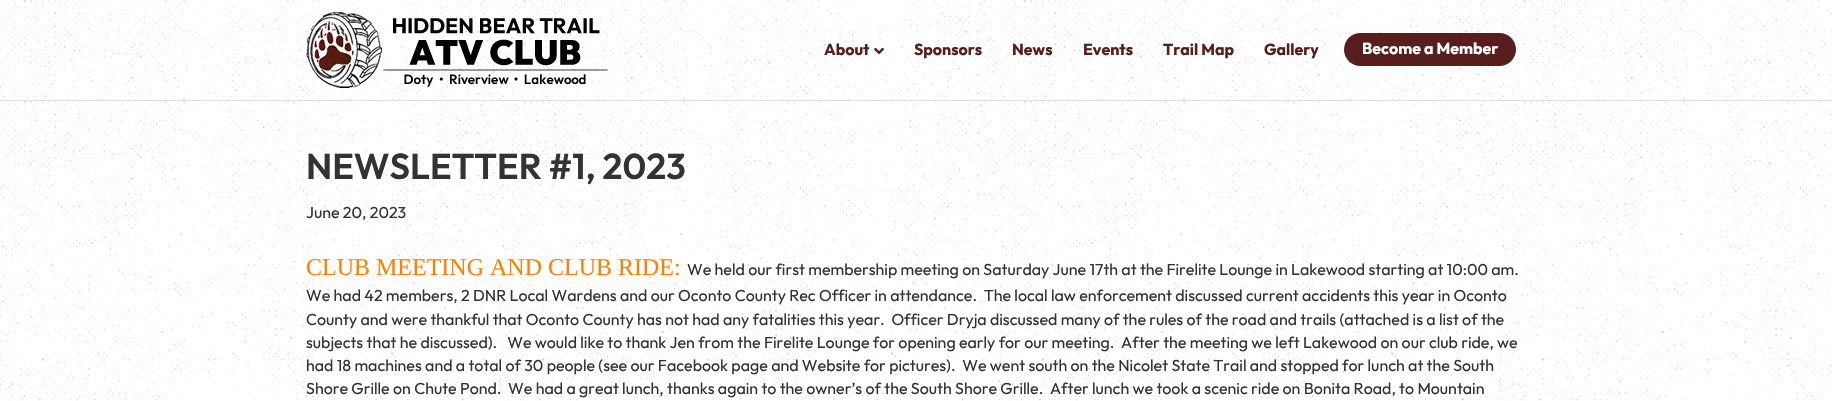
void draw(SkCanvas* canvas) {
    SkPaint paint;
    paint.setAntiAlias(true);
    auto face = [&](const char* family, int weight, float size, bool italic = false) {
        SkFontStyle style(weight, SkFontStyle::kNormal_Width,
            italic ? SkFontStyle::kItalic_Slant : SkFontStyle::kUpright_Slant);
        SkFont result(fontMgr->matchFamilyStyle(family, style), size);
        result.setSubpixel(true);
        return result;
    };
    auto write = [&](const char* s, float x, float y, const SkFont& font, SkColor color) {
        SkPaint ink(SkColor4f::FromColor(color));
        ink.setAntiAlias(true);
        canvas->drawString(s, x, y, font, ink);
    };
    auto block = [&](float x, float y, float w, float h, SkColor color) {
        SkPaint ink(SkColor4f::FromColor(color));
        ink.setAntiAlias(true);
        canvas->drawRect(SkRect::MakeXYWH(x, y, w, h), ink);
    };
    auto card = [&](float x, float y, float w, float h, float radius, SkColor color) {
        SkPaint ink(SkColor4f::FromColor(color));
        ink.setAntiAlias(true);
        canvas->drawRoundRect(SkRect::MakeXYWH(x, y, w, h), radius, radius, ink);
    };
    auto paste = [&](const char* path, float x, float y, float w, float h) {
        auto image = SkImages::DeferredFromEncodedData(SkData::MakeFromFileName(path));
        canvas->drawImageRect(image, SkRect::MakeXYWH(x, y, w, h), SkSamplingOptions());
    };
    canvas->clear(SK_ColorWHITE);
    paste("pic1.png", 0, 0, 1832, 101);
    block(0, 100, 1832, 1, SkColorSetARGB(33, 0, 0, 0));
    paste("pic2.png", 306, 12, 302, 76);
    auto kFont1 = face("Outfit", 700, 16);
    write("About", 824, 55, kFont1, SkColorSetRGB(88, 30, 29));
    paste("pic3.png", 874, 47, 10, 8);
    write("Sponsors", 914, 55, kFont1, SkColorSetRGB(88, 30, 29));
    write("News", 1012, 55, kFont1, SkColorSetRGB(88, 30, 29));
    write("Events", 1083, 55, kFont1, SkColorSetRGB(88, 30, 29));
    write("Trail Map", 1163, 55, kFont1, SkColorSetRGB(88, 30, 29));
    write("Gallery", 1264, 55, kFont1, SkColorSetRGB(88, 30, 29));
    card(1344, 33, 172, 33, 16.5f, SkColorSetRGB(88, 30, 29));
    write("Become a Member", 1362, 54, kFont1, SK_ColorWHITE);
    paste("pic4.png", 0, 101, 1832, 300);
    auto kFont2 = face("Outfit", 600, 36);
    write("NEWSLETTER #1, 2023", 306, 179, kFont2, SkColorSetRGB(51, 51, 51));
    auto kFont3 = face("Outfit", 400, 16);
    write("June 20, 2023", 306, 218, kFont3, SkColorSetRGB(51, 51, 51));
    auto kFont4 = face("Liberation Serif", 400, 24);
    write("CLUB MEETING AND CLUB RIDE:", 306, 275, kFont4, SkColorSetRGB(255, 128, 0));
    write("We held our first membership meeting on Saturday June 17th at the Firelite Lounge in Lakewood starting at 10:00 am.", 687, 275, kFont3, SkColorSetRGB(51, 51, 51));
    write("We had 42 members, 2 DNR Local Wardens and our Oconto County Rec Officer in attendance.  The local law enforcement discussed current accidents this year in Oconto", 306, 301, kFont3, SkColorSetRGB(51, 51, 51));
    write("County and were thankful that Oconto County has not had any fatalities this year.  Officer Dryja discussed many of the rules of the road and trails (attached is a list of the", 306, 325, kFont3, SkColorSetRGB(51, 51, 51));
    write("subjects that he discussed).   We would like to thank Jen from the Firelite Lounge for opening early for our meeting.  After the meeting we left Lakewood on our club ride, we", 306, 348, kFont3, SkColorSetRGB(51, 51, 51));
    write("had 18 machines and a total of 30 people (see our Facebook page and Website for pictures).  We went south on the Nicolet State Trail and stopped for lunch at the South", 306, 371, kFont3, SkColorSetRGB(51, 51, 51));
    write("Shore Grille on Chute Pond.  We had a great lunch, thanks again to the owner’s of the South Shore Grille.  After lunch we took a scenic ride on Bonita Road, to Mountain", 306, 394, kFont3, SkColorSetRGB(51, 51, 51));
}
